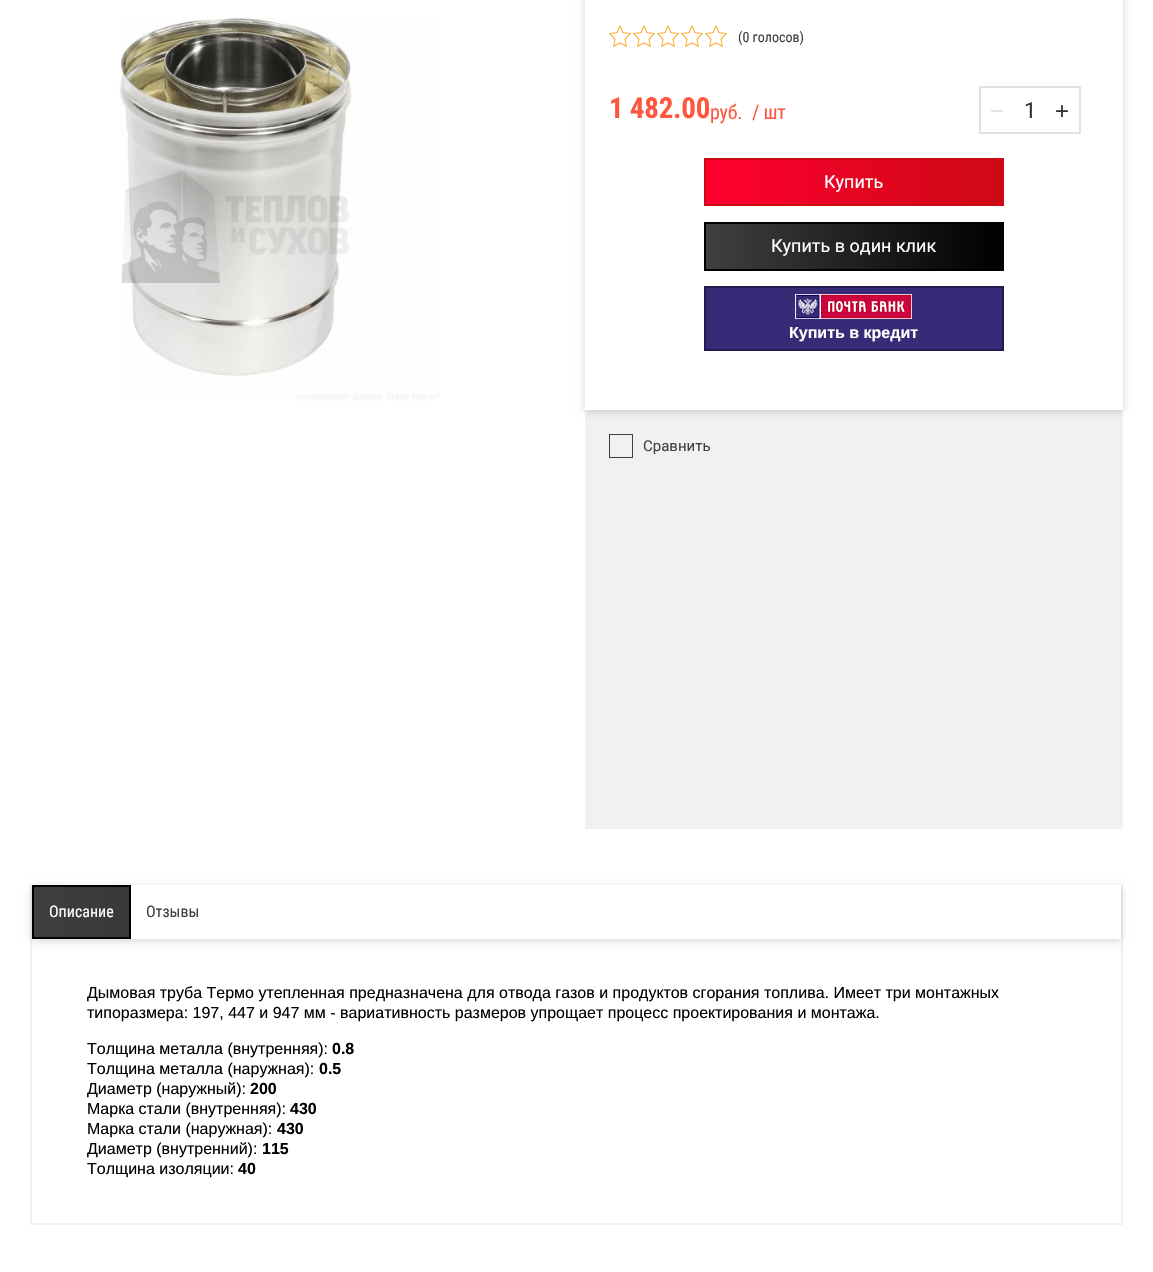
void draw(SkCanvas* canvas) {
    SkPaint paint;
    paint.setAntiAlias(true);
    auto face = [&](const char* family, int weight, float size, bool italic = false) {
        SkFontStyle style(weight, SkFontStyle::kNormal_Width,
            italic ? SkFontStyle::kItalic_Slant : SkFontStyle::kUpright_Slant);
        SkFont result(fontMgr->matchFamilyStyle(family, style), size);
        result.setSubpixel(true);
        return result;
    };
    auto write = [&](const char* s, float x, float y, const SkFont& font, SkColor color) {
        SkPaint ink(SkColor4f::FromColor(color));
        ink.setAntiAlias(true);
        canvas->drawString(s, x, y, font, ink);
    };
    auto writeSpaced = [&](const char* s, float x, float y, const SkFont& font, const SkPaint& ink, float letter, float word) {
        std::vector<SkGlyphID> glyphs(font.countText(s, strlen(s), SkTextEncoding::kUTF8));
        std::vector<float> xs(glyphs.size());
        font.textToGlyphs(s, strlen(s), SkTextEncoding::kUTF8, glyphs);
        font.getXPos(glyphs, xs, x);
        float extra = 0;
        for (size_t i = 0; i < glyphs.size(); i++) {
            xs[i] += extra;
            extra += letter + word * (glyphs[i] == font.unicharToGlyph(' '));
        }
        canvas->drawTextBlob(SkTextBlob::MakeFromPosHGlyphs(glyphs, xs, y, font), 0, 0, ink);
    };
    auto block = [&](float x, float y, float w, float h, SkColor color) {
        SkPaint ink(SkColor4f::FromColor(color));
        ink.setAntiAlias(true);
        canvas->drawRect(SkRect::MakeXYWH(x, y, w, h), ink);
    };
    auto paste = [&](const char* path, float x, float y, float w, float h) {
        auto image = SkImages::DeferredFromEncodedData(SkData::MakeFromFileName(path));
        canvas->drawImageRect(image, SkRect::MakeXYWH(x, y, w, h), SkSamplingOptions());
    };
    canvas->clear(SK_ColorWHITE);
    paste("pic1.png", 119, 17, 321, 384);
    block(585, 410, 538, 419, SkColorSetRGB(241, 241, 241));
    canvas->save();
    canvas->clipPath(SkPathBuilder(SkPathFillType::kEvenOdd).moveTo(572, 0).lineTo(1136, 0).lineTo(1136, 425).lineTo(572, 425).close().moveTo(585, -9).lineTo(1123, -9).lineTo(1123, 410).lineTo(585, 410).close().detach(), true);
    paint.setColor(SkColorSetARGB(41, 0, 0, 0));
    paint.setMaskFilter(SkMaskFilter::MakeBlur(kNormal_SkBlurStyle, 4));
    canvas->drawRect(SkRect::MakeXYWH(585, -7, 538, 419), paint);
    paint.setMaskFilter(nullptr);
    canvas->restore();
    paste("pic2.png", 609, 25, 118, 22);
    auto kFont1 = face("Roboto Condensed", 400, 14);
    write("(0 голосов)", 738, 42, kFont1, SkColorSetRGB(64, 64, 64));
    auto kFont2 = face("Roboto Condensed", 700, 29);
    paint.setColor(SkColorSetRGB(255, 86, 64));
    writeSpaced("1 482.00", 609, 118, kFont2, paint, -0.25f, 0);
    auto kFont3 = face("Roboto Condensed", 400, 20);
    writeSpaced("руб.", 710, 119, kFont3, paint, -0.25f, 0);
    writeSpaced("/ шт", 752, 119, kFont3, paint, -0.25f, 0);
    paint.setStyle(SkPaint::kStroke_Style);
    paint.setStrokeWidth(2);
    paint.setColor(SkColorSetRGB(225, 225, 225));
    canvas->drawRect(SkRect::MakeXYWH(980, 87, 100, 46), paint);
    auto kFont4 = face("Liberation Sans", 400, 24);
    write("−", 990, 119, kFont4, SkColorSetRGB(225, 225, 225));
    auto kFont5 = face("Roboto", 400, 22);
    write("1", 1024, 118, kFont5, SkColorSetRGB(56, 48, 48));
    write("+", 1055, 119, kFont4, SkColorSetRGB(56, 48, 48));
    paint.setStyle(SkPaint::kFill_Style);
    {
        const SkColor colors[] = {SkColorSetRGB(205, 9, 21), SkColorSetRGB(255, 0, 48)};
        const float stops[] = {0, 1};
        const SkPoint ends[] = {{1002, 182}, {706, 182}};
        paint.setShader(SkGradientShader::MakeLinear(ends, colors, stops, 2, SkTileMode::kClamp));
        paint.setAlpha(255);
    }
    canvas->drawRect(SkRect::MakeXYWH(706, 160, 296, 44), paint);
    paint.setStyle(SkPaint::kStroke_Style);
    paint.setShader(nullptr);
    paint.setColor(SkColorSetRGB(205, 9, 21));
    canvas->drawRect(SkRect::MakeXYWH(705, 159, 298, 46), paint);
    auto kFont6 = face("Roboto", 400, 18);
    write("Купить", 824, 188, kFont6, SK_ColorWHITE);
    paint.setStyle(SkPaint::kFill_Style);
    {
        const SkColor colors[] = {SkColorSetRGB(64, 64, 64), SK_ColorBLACK};
        const float stops[] = {0, 1};
        const SkPoint ends[] = {{706, 247}, {1002, 247}};
        paint.setShader(SkGradientShader::MakeLinear(ends, colors, stops, 2, SkTileMode::kClamp));
        paint.setAlpha(255);
    }
    canvas->drawRect(SkRect::MakeXYWH(706, 224, 296, 45), paint);
    paint.setStyle(SkPaint::kStroke_Style);
    paint.setShader(nullptr);
    paint.setColor(SK_ColorBLACK);
    canvas->drawRect(SkRect::MakeXYWH(705, 223, 298, 47), paint);
    write("Купить в один клик", 771, 252, kFont6, SK_ColorWHITE);
    paint.setStyle(SkPaint::kFill_Style);
    paint.setColor(SkColorSetRGB(55, 43, 119));
    canvas->drawRect(SkRect::MakeXYWH(705, 287, 298, 63), paint);
    paint.setStyle(SkPaint::kStroke_Style);
    paint.setColor(SkColorSetRGB(36, 28, 81));
    canvas->drawRect(SkRect::MakeXYWH(705, 287, 298, 63), paint);
    paste("pic3.png", 795, 294, 117, 25);
    auto kFont7 = face("Liberation Sans", 700, 16);
    write("Купить в кредит", 789, 338, kFont7, SK_ColorWHITE);
    paint.setStrokeWidth(1);
    paint.setColor(SkColorSetRGB(64, 64, 64));
    canvas->drawRect(SkRect::MakeXYWH(609.5f, 434.5f, 23, 23), paint);
    auto kFont8 = face("Roboto", 400, 15);
    write("Сравнить", 643, 451, kFont8, SkColorSetRGB(64, 64, 64));
    block(1121, 885, 2, 340, SkColorSetRGB(240, 240, 240));
    block(30, 1223, 1093, 2, SkColorSetRGB(240, 240, 240));
    block(30, 885, 2, 340, SkColorSetRGB(240, 240, 240));
    canvas->save();
    canvas->clipPath(SkPathBuilder(SkPathFillType::kEvenOdd).moveTo(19, 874).lineTo(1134, 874).lineTo(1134, 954).lineTo(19, 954).close().moveTo(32, 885).lineTo(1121, 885).lineTo(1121, 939).lineTo(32, 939).close().detach(), true);
    paint.setStyle(SkPaint::kFill_Style);
    paint.setColor(SkColorSetARGB(41, 0, 0, 0));
    paint.setMaskFilter(SkMaskFilter::MakeBlur(kNormal_SkBlurStyle, 4));
    canvas->drawRect(SkRect::MakeXYWH(32, 887, 1089, 54), paint);
    paint.setMaskFilter(nullptr);
    canvas->restore();
    {
        const SkColor colors[] = {SkColorSetRGB(64, 64, 64), SK_ColorBLACK};
        const float stops[] = {0, 1};
        const SkPoint ends[] = {{0, 636}, {1153, 636}};
        paint.setShader(SkGradientShader::MakeLinear(ends, colors, stops, 2, SkTileMode::kClamp));
        paint.setAlpha(255);
    }
    canvas->drawRect(SkRect::MakeXYWH(34, 887, 95, 50), paint);
    paint.setStyle(SkPaint::kStroke_Style);
    paint.setStrokeWidth(2);
    paint.setShader(nullptr);
    paint.setColor(SK_ColorBLACK);
    canvas->drawRect(SkRect::MakeXYWH(33, 886, 97, 52), paint);
    auto kFont9 = face("Roboto Condensed", 400, 16);
    write("Описание", 49, 917, kFont9, SK_ColorWHITE);
    write("Отзывы", 146, 917, kFont9, SkColorSetRGB(64, 64, 64));
    auto kFont10 = face("Liberation Sans", 400, 16);
    write("Дымовая труба Термо утепленная предназначена для отвода газов и продуктов сгорания топлива. Имеет три монтажных", 87, 998, kFont10, SK_ColorBLACK);
    write("типоразмера: 197, 447 и 947 мм - вариативность размеров упрощает процесс проектирования и монтажа.", 87, 1018, kFont10, SK_ColorBLACK);
    write("Толщина металла (внутренняя):", 87, 1054, kFont10, SK_ColorBLACK);
    write("0.8", 332, 1054, kFont7, SK_ColorBLACK);
    write("Толщина металла (наружная):", 87, 1074, kFont10, SK_ColorBLACK);
    write("0.5", 319, 1074, kFont7, SK_ColorBLACK);
    write("Диаметр (наружный):", 87, 1094, kFont10, SK_ColorBLACK);
    write("200", 250, 1094, kFont7, SK_ColorBLACK);
    write("Марка стали (внутренняя):", 87, 1114, kFont10, SK_ColorBLACK);
    write("430", 290, 1114, kFont7, SK_ColorBLACK);
    write("Марка стали (наружная):", 87, 1134, kFont10, SK_ColorBLACK);
    write("430", 277, 1134, kFont7, SK_ColorBLACK);
    write("Диаметр (внутренний):", 87, 1154, kFont10, SK_ColorBLACK);
    write("115", 262, 1154, kFont7, SK_ColorBLACK);
    write("Толщина изоляции:", 87, 1174, kFont10, SK_ColorBLACK);
    write("40", 238, 1174, kFont7, SK_ColorBLACK);
}
